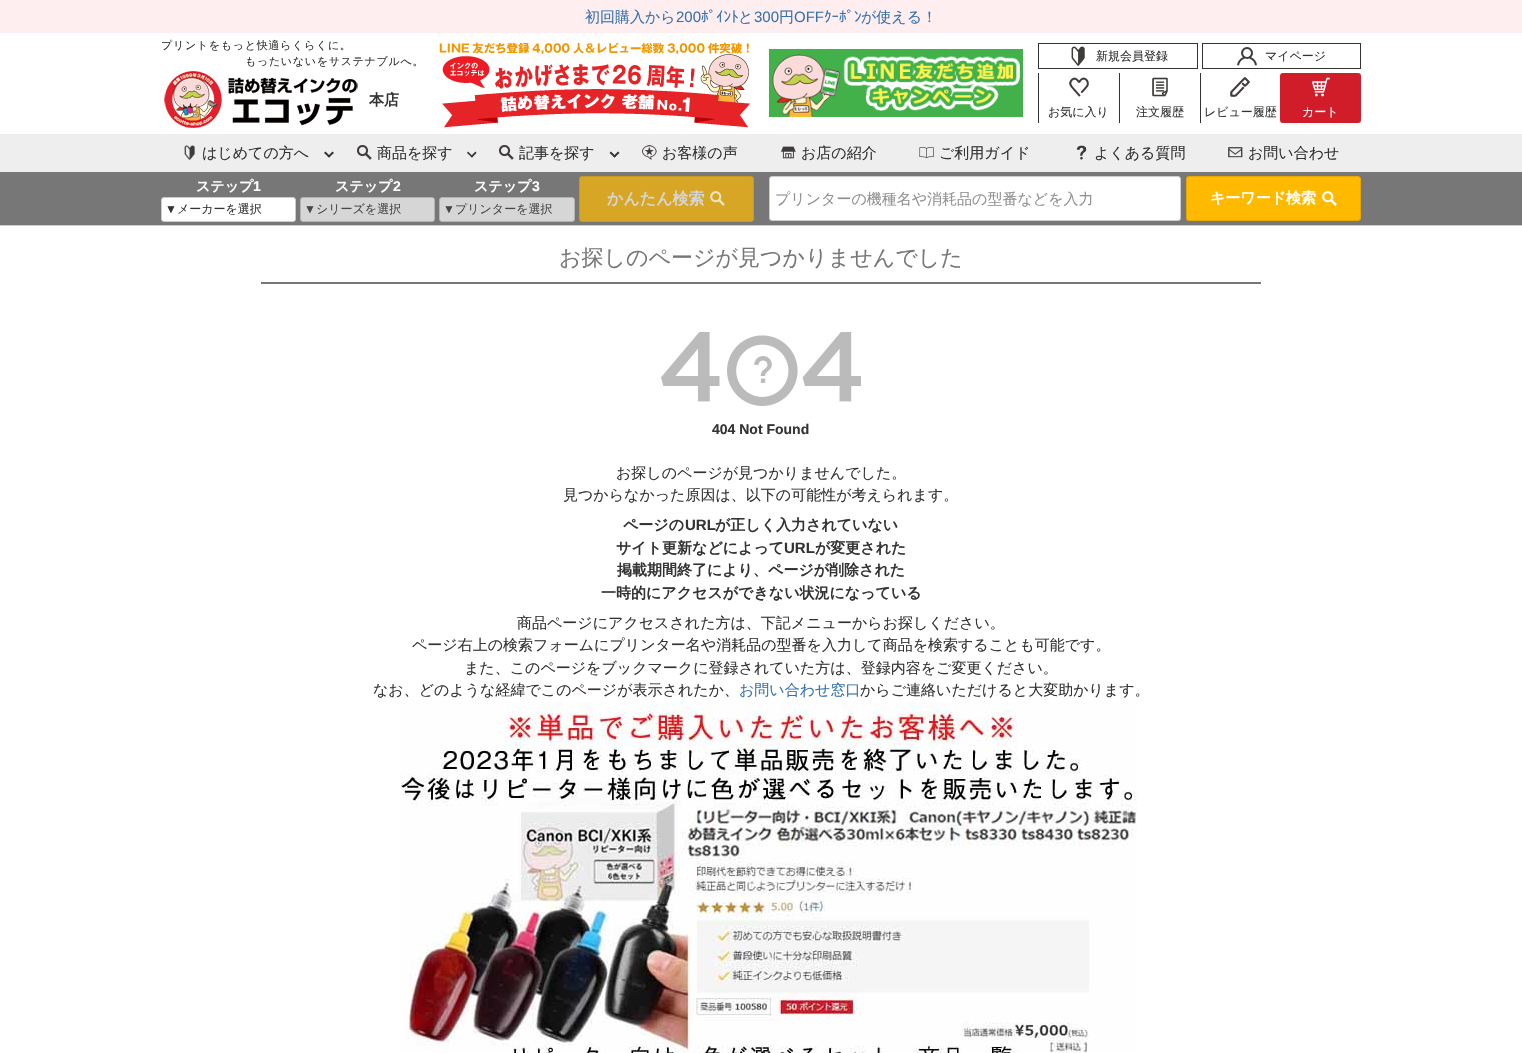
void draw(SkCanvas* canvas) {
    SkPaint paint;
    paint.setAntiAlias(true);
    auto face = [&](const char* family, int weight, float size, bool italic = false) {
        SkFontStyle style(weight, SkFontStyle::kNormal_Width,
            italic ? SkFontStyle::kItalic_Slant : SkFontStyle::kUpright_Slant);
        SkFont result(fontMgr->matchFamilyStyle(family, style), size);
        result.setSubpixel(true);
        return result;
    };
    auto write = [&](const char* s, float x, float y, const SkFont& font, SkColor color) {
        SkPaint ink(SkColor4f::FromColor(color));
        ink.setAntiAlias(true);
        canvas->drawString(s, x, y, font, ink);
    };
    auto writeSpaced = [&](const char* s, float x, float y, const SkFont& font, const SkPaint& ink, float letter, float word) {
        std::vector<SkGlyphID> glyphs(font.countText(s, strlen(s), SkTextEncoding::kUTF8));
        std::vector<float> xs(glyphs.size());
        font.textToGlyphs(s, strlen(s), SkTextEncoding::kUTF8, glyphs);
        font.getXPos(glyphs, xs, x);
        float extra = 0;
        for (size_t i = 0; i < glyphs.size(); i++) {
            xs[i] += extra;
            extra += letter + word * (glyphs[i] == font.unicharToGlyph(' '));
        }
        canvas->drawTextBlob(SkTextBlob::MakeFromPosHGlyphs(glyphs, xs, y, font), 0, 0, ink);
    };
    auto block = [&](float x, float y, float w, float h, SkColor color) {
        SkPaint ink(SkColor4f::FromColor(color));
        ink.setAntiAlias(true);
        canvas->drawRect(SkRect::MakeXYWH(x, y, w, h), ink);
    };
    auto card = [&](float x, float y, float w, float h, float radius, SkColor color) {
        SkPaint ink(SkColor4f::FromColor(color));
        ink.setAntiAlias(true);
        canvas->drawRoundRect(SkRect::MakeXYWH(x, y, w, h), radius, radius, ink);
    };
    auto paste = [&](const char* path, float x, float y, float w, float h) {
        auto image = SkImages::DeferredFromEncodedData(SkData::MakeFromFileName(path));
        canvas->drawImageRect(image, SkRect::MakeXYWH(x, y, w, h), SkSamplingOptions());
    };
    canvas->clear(SK_ColorWHITE);
    block(0, 0, 1522, 33, SkColorSetRGB(255, 238, 240));
    auto kFont1 = face("WenQuanYi Zen Hei", 500, 15);
    write("初回購入から", 585, 22, kFont1, SkColorSetRGB(53, 114, 176));
    auto kFont2 = face("Liberation Sans", 400, 15);
    write("200", 676, 22, kFont2, SkColorSetRGB(53, 114, 176));
    auto kFont3 = face("IPAPGothic", 400, 15);
    write("ﾎﾟｲﾝﾄ", 701, 22, kFont3, SkColorSetRGB(53, 114, 176));
    write("と", 738, 22, kFont1, SkColorSetRGB(53, 114, 176));
    write("300", 754, 22, kFont2, SkColorSetRGB(53, 114, 176));
    write("円", 779, 22, kFont1, SkColorSetRGB(53, 114, 176));
    write("OFF", 794, 22, kFont2, SkColorSetRGB(53, 114, 176));
    write("ｸｰﾎﾟﾝ", 824, 22, kFont3, SkColorSetRGB(53, 114, 176));
    write("が使える！", 861, 22, kFont1, SkColorSetRGB(53, 114, 176));
    auto kFont4 = face("WenQuanYi Zen Hei", 500, 11);
    paint.setColor(SkColorSetRGB(51, 51, 51));
    writeSpaced("プリントをもっと快適らくらくに。", 161, 49, kFont4, paint, 0.7f, 0);
    writeSpaced("もったいないをサステナブルへ。", 245, 65, kFont4, paint, 0.7f, 0);
    paste("pic1.png", 164, 71, 194, 57);
    auto kFont5 = face("WenQuanYi Zen Hei", 700, 15);
    write("本店", 369, 105, kFont5, SkColorSetRGB(51, 51, 51));
    paste("pic2.png", 439, 42, 311, 86);
    paste("pic3.png", 769, 49, 254, 68);
    paint.setStyle(SkPaint::kStroke_Style);
    paint.setStrokeWidth(1);
    canvas->drawRect(SkRect::MakeXYWH(1038.5f, 43.5f, 159, 25), paint);
    paste("pic4.png", 1071, 46, 14, 20);
    auto kFont6 = face("WenQuanYi Zen Hei", 500, 12);
    write("新規会員登録", 1096, 60, kFont6, SkColorSetRGB(51, 51, 51));
    canvas->drawRect(SkRect::MakeXYWH(1202.5f, 43.5f, 158, 25), paint);
    paste("pic5.png", 1237, 47, 20, 19);
    write("マイページ", 1265, 60, kFont6, SkColorSetRGB(51, 51, 51));
    block(1038, 73, 1, 50, SkColorSetRGB(51, 51, 51));
    paste("pic6.png", 1069, 77, 20, 20);
    write("お気に入り", 1048, 116, kFont6, SkColorSetRGB(51, 51, 51));
    block(1119, 73, 1, 50, SkColorSetRGB(51, 51, 51));
    paste("pic7.png", 1152, 77, 16, 20);
    write("注文履歴", 1136, 116, kFont6, SkColorSetRGB(51, 51, 51));
    block(1200, 73, 1, 50, SkColorSetRGB(51, 51, 51));
    paste("pic8.png", 1230, 77, 20, 20);
    write("レビュー履歴", 1204, 116, kFont6, SkColorSetRGB(51, 51, 51));
    card(1280, 73, 81, 50, 3, SkColorSetRGB(209, 29, 42));
    paste("pic9.png", 1312, 77, 18, 20);
    write("カート", 1302, 116, kFont6, SK_ColorWHITE);
    block(0, 134, 1522, 38, SkColorSetRGB(238, 238, 238));
    paste("pic10.png", 184, 145, 11, 15);
    write("はじめての方へ", 202, 158, kFont1, SkColorSetRGB(51, 51, 51));
    paint.setStyle(SkPaint::kFill_Style);
    canvas->drawPath(SkPathBuilder().moveTo(332.5f, 151.5f).lineTo(334, 153).lineTo(329, 157.5f).lineTo(327.5f, 156.5f).close().detach(), paint);
    canvas->drawPath(SkPathBuilder().moveTo(325.5f, 151.5f).lineTo(330.5f, 156.5f).lineTo(329, 157.5f).lineTo(324, 153).close().detach(), paint);
    paste("pic11.png", 357, 145, 15, 15);
    write("商品を探す", 377, 158, kFont1, SkColorSetRGB(51, 51, 51));
    canvas->drawPath(SkPathBuilder().moveTo(475.5f, 151.5f).lineTo(476.5f, 153).lineTo(472, 157.5f).lineTo(470.5f, 156.5f).close().detach(), paint);
    canvas->drawPath(SkPathBuilder().moveTo(468, 151.5f).lineTo(473, 156.5f).lineTo(472, 157.5f).lineTo(467, 153).close().detach(), paint);
    paste("pic11.png", 499, 145, 15, 15);
    write("記事を探す", 519, 158, kFont1, SkColorSetRGB(51, 51, 51));
    canvas->drawPath(SkPathBuilder().moveTo(618, 151.5f).lineTo(619.5f, 153).lineTo(614.5f, 157.5f).lineTo(613, 156.5f).close().detach(), paint);
    canvas->drawPath(SkPathBuilder().moveTo(611, 151.5f).lineTo(616, 156.5f).lineTo(614.5f, 157.5f).lineTo(609.5f, 153).close().detach(), paint);
    paste("pic12.png", 642, 145, 15, 15);
    write("お客様の声", 662, 158, kFont1, SkColorSetRGB(51, 51, 51));
    paste("pic13.png", 781, 146, 15, 13);
    write("お店の紹介", 801, 158, kFont1, SkColorSetRGB(51, 51, 51));
    paste("pic14.png", 919, 147, 15, 11);
    write("ご利用ガイド", 939, 158, kFont1, SkColorSetRGB(51, 51, 51));
    paste("pic15.png", 1076, 145, 11, 15);
    write("よくある質問", 1094, 158, kFont1, SkColorSetRGB(51, 51, 51));
    paste("pic16.png", 1228, 147, 15, 11);
    write("お問い合わせ", 1248, 158, kFont1, SkColorSetRGB(51, 51, 51));
    block(0, 172, 1522, 53, SkColorSetRGB(119, 119, 119));
    block(0, 225, 1522, 1, SkColorSetRGB(204, 204, 204));
    auto kFont7 = face("WenQuanYi Zen Hei", 700, 14);
    write("ステップ", 196, 191, kFont7, SK_ColorWHITE);
    auto kFont8 = face("Liberation Sans", 700, 14);
    write("1", 253, 191, kFont8, SK_ColorWHITE);
    paint.setColor(SK_ColorWHITE);
    canvas->drawRoundRect(SkRect::MakeXYWH(161.5f, 197.5f, 134, 24), 2.5f, 2.5f, paint);
    paint.setStyle(SkPaint::kStroke_Style);
    paint.setColor(SkColorSetRGB(204, 204, 204));
    canvas->drawRoundRect(SkRect::MakeXYWH(161.5f, 197.5f, 134, 24), 2.5f, 2.5f, paint);
    auto kFont9 = face("Liberation Sans", 400, 12);
    write("▼", 165, 213, kFont9, SkColorSetRGB(51, 51, 51));
    write("メーカーを選択", 177, 213, kFont6, SkColorSetRGB(51, 51, 51));
    write("ステップ", 335, 191, kFont7, SK_ColorWHITE);
    write("2", 393, 191, kFont8, SK_ColorWHITE);
    paint.setStyle(SkPaint::kFill_Style);
    paint.setColor(SkColorSetRGB(214, 214, 214));
    canvas->drawRoundRect(SkRect::MakeXYWH(300.5f, 197.5f, 134, 24), 2.5f, 2.5f, paint);
    paint.setStyle(SkPaint::kStroke_Style);
    paint.setColor(SkColorSetRGB(179, 179, 179));
    canvas->drawRoundRect(SkRect::MakeXYWH(300.5f, 197.5f, 134, 24), 2.5f, 2.5f, paint);
    write("▼", 304, 213, kFont9, SkColorSetRGB(71, 71, 71));
    write("シリーズを選択", 316, 213, kFont6, SkColorSetRGB(71, 71, 71));
    write("ステップ", 474, 191, kFont7, SK_ColorWHITE);
    write("3", 532, 191, kFont8, SK_ColorWHITE);
    paint.setStyle(SkPaint::kFill_Style);
    paint.setColor(SkColorSetRGB(214, 214, 214));
    canvas->drawRoundRect(SkRect::MakeXYWH(439.5f, 197.5f, 135, 24), 2.5f, 2.5f, paint);
    paint.setStyle(SkPaint::kStroke_Style);
    paint.setColor(SkColorSetRGB(179, 179, 179));
    canvas->drawRoundRect(SkRect::MakeXYWH(439.5f, 197.5f, 135, 24), 2.5f, 2.5f, paint);
    write("▼", 443, 213, kFont9, SkColorSetRGB(71, 71, 71));
    write("プリンターを選択", 455, 213, kFont6, SkColorSetRGB(71, 71, 71));
    paint.setStyle(SkPaint::kFill_Style);
    paint.setColor(SkColorSetRGB(214, 166, 36));
    canvas->drawRoundRect(SkRect::MakeXYWH(579.5f, 176.5f, 174, 45), 2.5f, 2.5f, paint);
    paint.setStyle(SkPaint::kStroke_Style);
    paint.setColor(SkColorSetRGB(197, 153, 36));
    canvas->drawRoundRect(SkRect::MakeXYWH(579.5f, 176.5f, 174, 45), 2.5f, 2.5f, paint);
    auto kFont10 = face("WenQuanYi Zen Hei", 700, 16);
    write("かんたん検索", 607, 204, kFont10, SkColorSetRGB(214, 214, 214));
    paste("pic17.png", 710, 191, 15, 15);
    paint.setStyle(SkPaint::kFill_Style);
    paint.setColor(SK_ColorWHITE);
    canvas->drawRoundRect(SkRect::MakeXYWH(769.5f, 176.5f, 411, 44), 2.5f, 2.5f, paint);
    paint.setStyle(SkPaint::kStroke_Style);
    paint.setColor(SkColorSetRGB(204, 204, 204));
    canvas->drawRoundRect(SkRect::MakeXYWH(769.5f, 176.5f, 411, 44), 2.5f, 2.5f, paint);
    write("プリンターの機種名や消耗品の型番などを入力", 775, 204, kFont1, SkColorSetRGB(145, 145, 145));
    paint.setStyle(SkPaint::kFill_Style);
    paint.setColor(SkColorSetRGB(255, 186, 0));
    canvas->drawRoundRect(SkRect::MakeXYWH(1186.5f, 176.5f, 174, 44), 2.5f, 2.5f, paint);
    paint.setStyle(SkPaint::kStroke_Style);
    paint.setColor(SkColorSetRGB(230, 167, 0));
    canvas->drawRoundRect(SkRect::MakeXYWH(1186.5f, 176.5f, 174, 44), 2.5f, 2.5f, paint);
    write("キーワード検索", 1210, 203, kFont5, SK_ColorWHITE);
    paste("pic18.png", 1322, 191, 15, 15);
    block(261, 282, 1000, 2, SkColorSetRGB(119, 119, 119));
    auto kFont11 = face("WenQuanYi Zen Hei", 500, 22);
    write("お探しのページが見つかりませんでした", 559, 265, kFont11, SkColorSetRGB(119, 119, 119));
    paste("pic19.png", 661, 332, 200, 74);
    write("404 Not Found", 712, 434, kFont8, SkColorSetRGB(51, 51, 51));
    write("お探しのページが見つかりませんでした。", 616, 478, kFont1, SkColorSetRGB(51, 51, 51));
    write("見つからなかった原因は、以下の可能性が考えられます。", 563, 500, kFont1, SkColorSetRGB(51, 51, 51));
    write("ページの", 623, 530, kFont5, SkColorSetRGB(51, 51, 51));
    auto kFont12 = face("Liberation Sans", 700, 15);
    write("URL", 685, 530, kFont12, SkColorSetRGB(51, 51, 51));
    write("が正しく入力されていない", 715, 530, kFont5, SkColorSetRGB(51, 51, 51));
    write("サイト更新などによって", 616, 553, kFont5, SkColorSetRGB(51, 51, 51));
    write("URL", 784, 553, kFont12, SkColorSetRGB(51, 51, 51));
    write("が変更された", 815, 553, kFont5, SkColorSetRGB(51, 51, 51));
    write("掲載期間終了により、ページが削除された", 617, 575, kFont5, SkColorSetRGB(51, 51, 51));
    write("一時的にアクセスができない状況になっている", 601, 598, kFont5, SkColorSetRGB(51, 51, 51));
    write("商品ページにアクセスされた方は、下記メニューからお探しください。", 517, 628, kFont1, SkColorSetRGB(51, 51, 51));
    write("ページ右上の検索フォームにプリンター名や消耗品の型番を入力して商品を検索することも可能です。", 412, 650, kFont1, SkColorSetRGB(51, 51, 51));
    write("また、このページをブックマークに登録されていた方は、登録内容をご変更ください。", 464, 673, kFont1, SkColorSetRGB(51, 51, 51));
    write("なお、どのような経緯でこのページが表示されたか、", 373, 695, kFont1, SkColorSetRGB(51, 51, 51));
    write("お問い合わせ窓口", 739, 695, kFont1, SkColorSetRGB(53, 114, 176));
    write("からご連絡いただけると大変助かります。", 860, 695, kFont1, SkColorSetRGB(51, 51, 51));
    paste("pic20.png", 401, 702, 736, 351);
}
